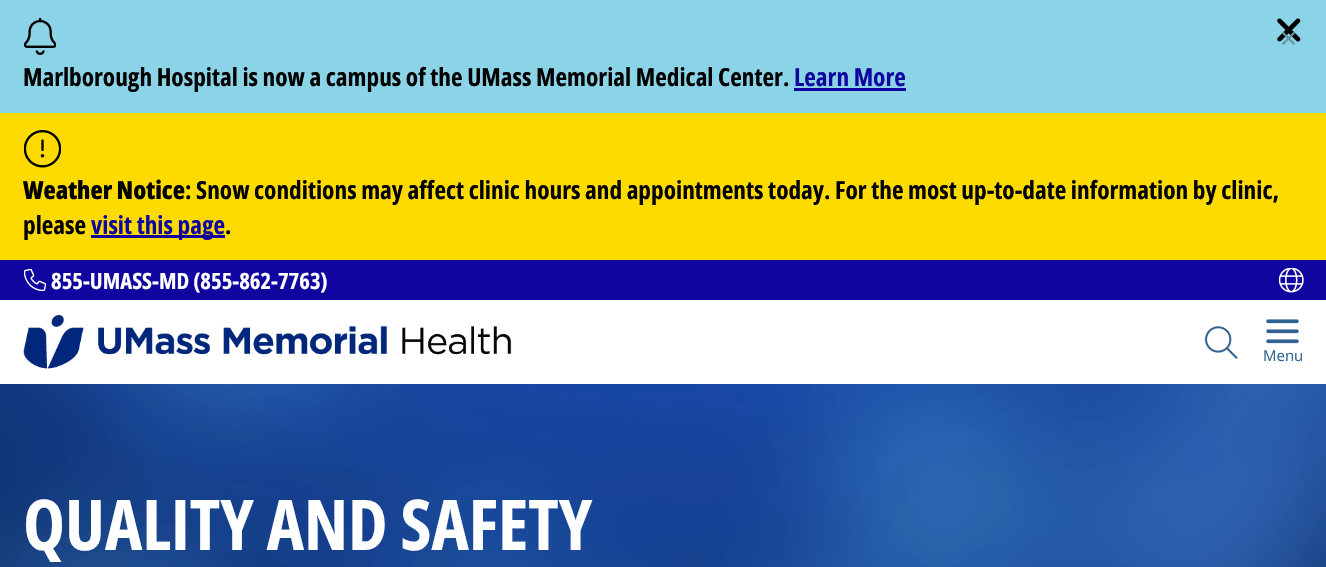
void draw(SkCanvas* canvas) {
    SkPaint paint;
    paint.setAntiAlias(true);
    auto face = [&](const char* family, int weight, float size, bool italic = false) {
        SkFontStyle style(weight, SkFontStyle::kNormal_Width,
            italic ? SkFontStyle::kItalic_Slant : SkFontStyle::kUpright_Slant);
        SkFont result(fontMgr->matchFamilyStyle(family, style), size);
        result.setSubpixel(true);
        return result;
    };
    auto write = [&](const char* s, float x, float y, const SkFont& font, SkColor color) {
        SkPaint ink(SkColor4f::FromColor(color));
        ink.setAntiAlias(true);
        canvas->drawString(s, x, y, font, ink);
    };
    auto block = [&](float x, float y, float w, float h, SkColor color) {
        SkPaint ink(SkColor4f::FromColor(color));
        ink.setAntiAlias(true);
        canvas->drawRect(SkRect::MakeXYWH(x, y, w, h), ink);
    };
    auto paste = [&](const char* path, float x, float y, float w, float h) {
        auto image = SkImages::DeferredFromEncodedData(SkData::MakeFromFileName(path));
        canvas->drawImageRect(image, SkRect::MakeXYWH(x, y, w, h), SkSamplingOptions());
    };
    canvas->clear(SK_ColorWHITE);
    block(0, 0, 1326, 113, SkColorSetRGB(139, 211, 230));
    paste("pic1.png", 1277, 18, 24, 24);
    auto kFont1 = face("Open Sans", 400, 30);
    write("×", 1280, 49, kFont1, SkColorSetRGB(98, 149, 162));
    paste("pic2.png", 24, 18, 32, 37);
    auto kFont2 = face("Open Sans", 700, 25);
    write("Marlborough Hospital is now a campus of the UMass Memorial Medical Center.", 23, 86, kFont2, SK_ColorBLACK);
    write("Learn More", 794, 86, kFont2, SkColorSetRGB(16, 6, 159));
    block(794, 88, 112, 3, SkColorSetRGB(16, 6, 159));
    block(0, 113, 1326, 147, SkColorSetRGB(254, 219, 0));
    paste("pic3.png", 24, 130, 37, 38);
    auto kFont3 = face("Open Sans", 800, 25);
    write("Weather Notice", 23, 199, kFont3, SK_ColorBLACK);
    write(": Snow conditions may affect clinic hours and appointments today. For the most up-to-date information by clinic,", 185, 199, kFont2, SK_ColorBLACK);
    write("please", 23, 234, kFont2, SK_ColorBLACK);
    block(91, 235, 134, 3, SkColorSetRGB(16, 6, 159));
    write("visit this page", 91, 234, kFont2, SkColorSetRGB(16, 6, 159));
    write(".", 225, 234, kFont2, SK_ColorBLACK);
    block(0, 260, 1326, 40, SkColorSetRGB(16, 6, 159));
    paste("pic4.png", 24, 269, 22, 22);
    auto kFont4 = face("Open Sans", 700, 22.5f);
    write("855-UMASS-MD (855-862-7763)", 51, 289, kFont4, SK_ColorWHITE);
    paste("pic5.png", 1279, 268, 25, 25);
    paste("pic6.png", 23, 315, 489, 54);
    paste("pic7.png", 1205, 326, 33, 33);
    paste("pic8.png", 1266, 319, 33, 25);
    auto kFont5 = face("Open Sans", 400, 15);
    write("Menu", 1263, 361, kFont5, SkColorSetRGB(50, 98, 149));
    paste("pic9.png", 0, 384, 1326, 183);
    auto kFont6 = face("Open Sans", 700, 70);
    write("QUALITY AND SAFETY", 23, 550, kFont6, SK_ColorWHITE);
}
